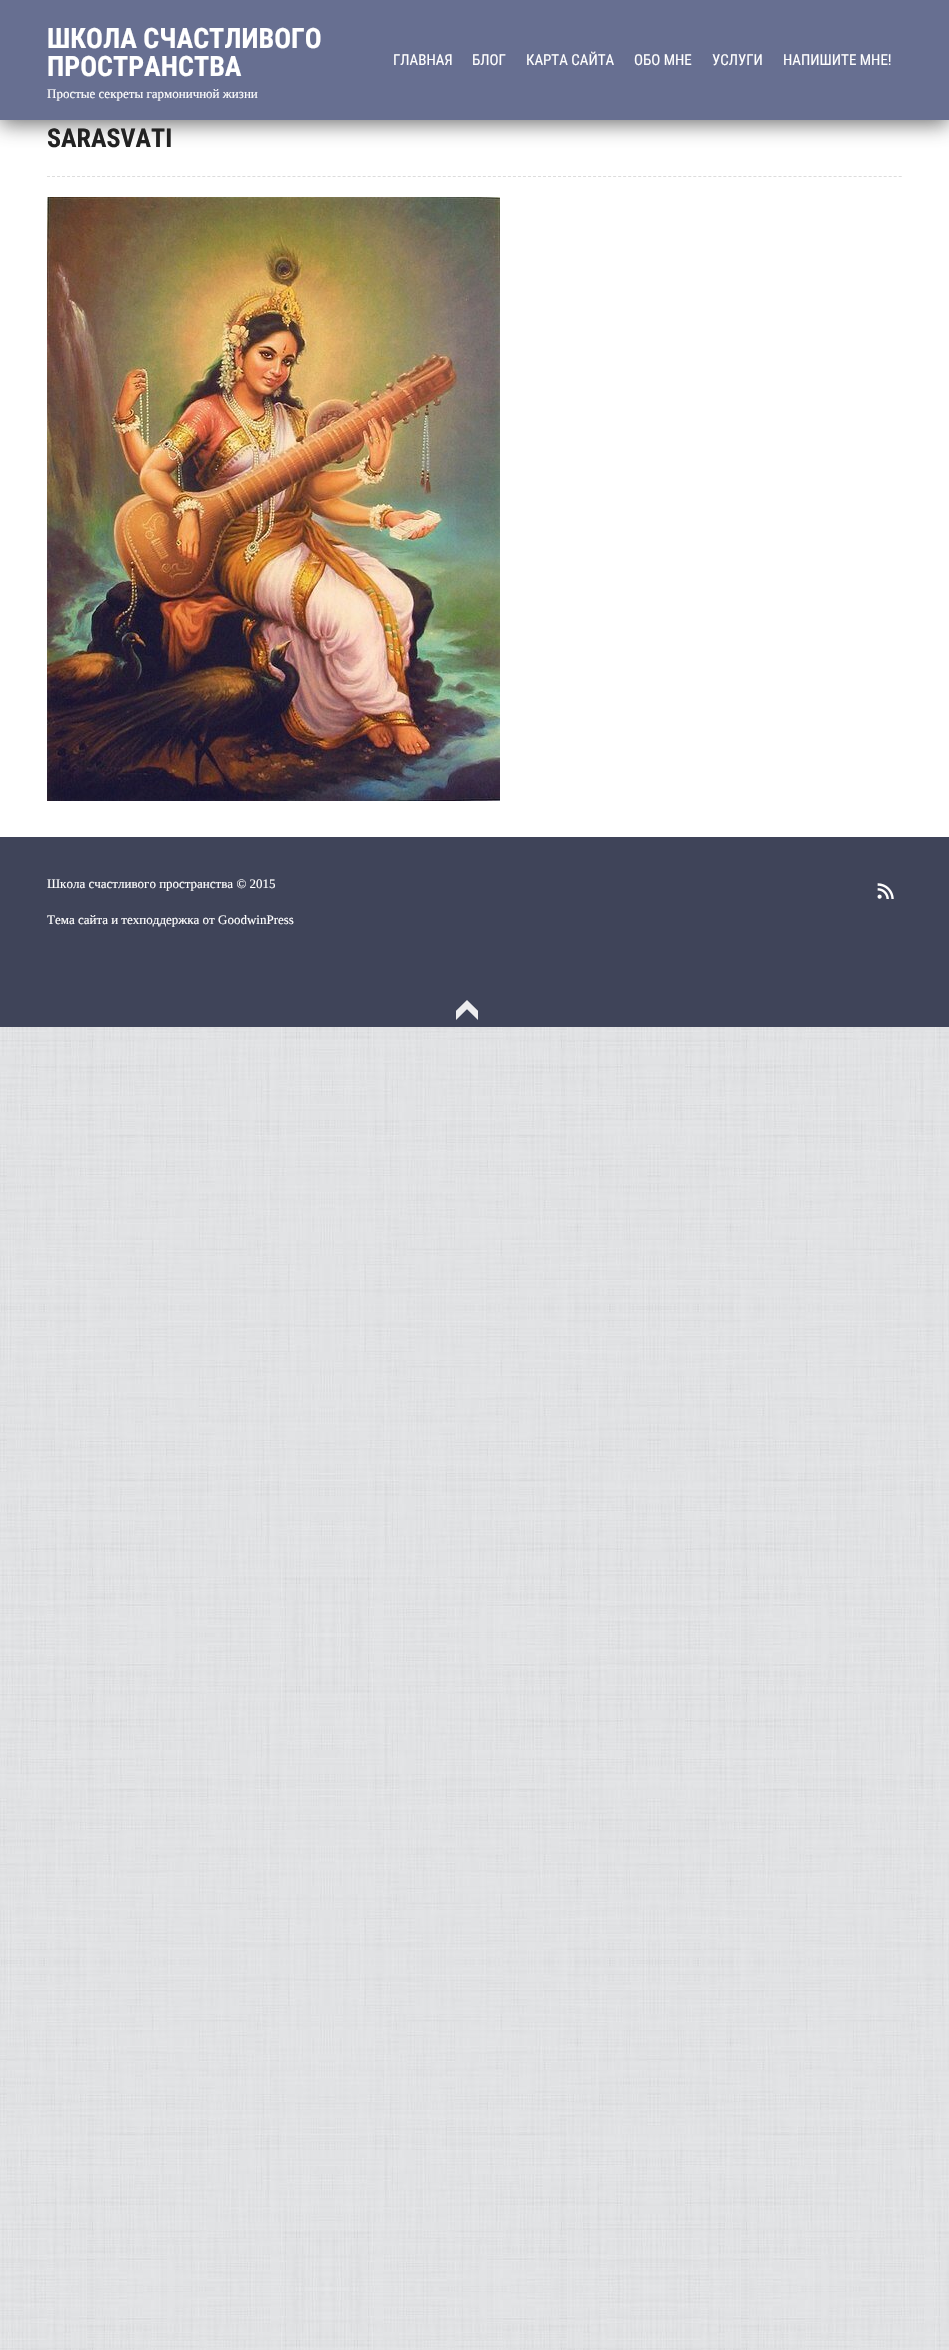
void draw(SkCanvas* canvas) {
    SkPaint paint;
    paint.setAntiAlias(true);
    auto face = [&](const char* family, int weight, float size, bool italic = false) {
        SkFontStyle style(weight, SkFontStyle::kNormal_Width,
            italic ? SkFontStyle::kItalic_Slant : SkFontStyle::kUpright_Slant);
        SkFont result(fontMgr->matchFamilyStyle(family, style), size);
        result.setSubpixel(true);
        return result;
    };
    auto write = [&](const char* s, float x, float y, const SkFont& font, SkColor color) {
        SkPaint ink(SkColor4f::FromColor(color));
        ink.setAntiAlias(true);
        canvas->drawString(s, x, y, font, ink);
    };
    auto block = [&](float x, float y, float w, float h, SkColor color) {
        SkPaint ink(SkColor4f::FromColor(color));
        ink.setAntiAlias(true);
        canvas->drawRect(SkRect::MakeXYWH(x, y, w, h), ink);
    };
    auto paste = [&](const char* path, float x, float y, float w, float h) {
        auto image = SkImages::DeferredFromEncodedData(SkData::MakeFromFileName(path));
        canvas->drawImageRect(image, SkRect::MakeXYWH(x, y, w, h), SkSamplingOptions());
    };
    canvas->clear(SK_ColorWHITE);
    paste("pic1.png", 0, 1027, 949, 1323);
    paint.setColor(SkColorSetARGB(179, 51, 51, 51));
    paint.setMaskFilter(SkMaskFilter::MakeBlur(kNormal_SkBlurStyle, 10));
    canvas->drawRect(SkRect::MakeXYWH(0, 4, 949, 120), paint);
    paint.setMaskFilter(nullptr);
    block(0, 0, 949, 120, SkColorSetRGB(103, 111, 145));
    auto kFont1 = face("Roboto Condensed", 700, 28);
    write("ШКОЛА СЧАСТЛИВОГО", 47, 48, kFont1, SK_ColorWHITE);
    write("ПРОСТРАНСТВА", 47, 76, kFont1, SK_ColorWHITE);
    auto kFont2 = face("Tinos", 400, 13);
    write("Простые секреты гармоничной жизни", 47, 98, kFont2, SK_ColorWHITE);
    auto kFont3 = face("Roboto Condensed", 400, 15);
    write("ГЛАВНАЯ", 393, 65, kFont3, SK_ColorWHITE);
    write("БЛОГ", 472, 65, kFont3, SK_ColorWHITE);
    write("КАРТА САЙТА", 526, 65, kFont3, SK_ColorWHITE);
    write("ОБО МНЕ", 634, 65, kFont3, SK_ColorWHITE);
    write("УСЛУГИ", 712, 65, kFont3, SK_ColorWHITE);
    write("НАПИШИТЕ МНЕ!", 783, 65, kFont3, SK_ColorWHITE);
    paint.setStyle(SkPaint::kStroke_Style);
    paint.setStrokeWidth(1);
    paint.setColor(SkColorSetRGB(221, 221, 221));
    paint.setPathEffect(SkDashPathEffect::Make({{3, 2.01f}}, 0));
    canvas->drawPath(SkPathBuilder().moveTo(47, 176.5f).lineTo(902, 176.5f).detach(), paint);
    paint.setPathEffect(nullptr);
    auto kFont4 = face("Roboto Condensed", 700, 26);
    write("SARASVATI", 47, 147, kFont4, SkColorSetRGB(34, 34, 34));
    paste("pic2.png", 47, 197, 453, 604);
    block(0, 837, 949, 190, SkColorSetRGB(63, 68, 89));
    write("Школа счастливого пространства © 2015", 47, 888, kFont2, SK_ColorWHITE);
    write("Тема сайта и техподдержка от GoodwinPress", 47, 924, kFont2, SK_ColorWHITE);
    paste("pic3.png", 877, 883, 17, 16);
    paste("pic4.png", 456, 1000, 22, 20);
}
